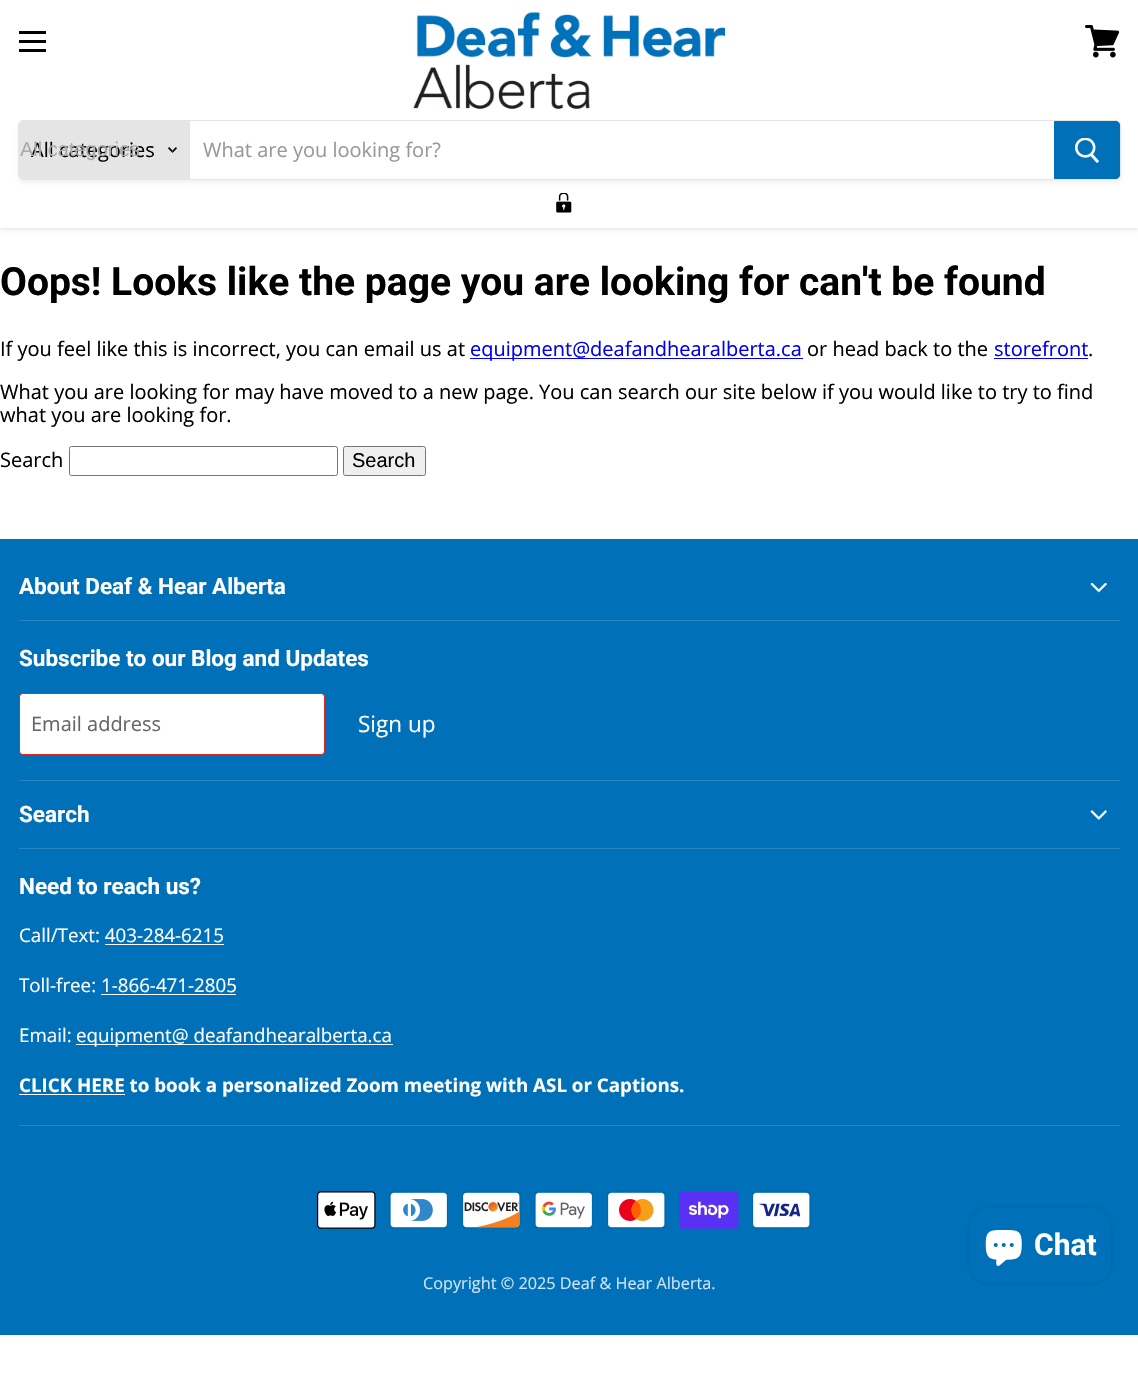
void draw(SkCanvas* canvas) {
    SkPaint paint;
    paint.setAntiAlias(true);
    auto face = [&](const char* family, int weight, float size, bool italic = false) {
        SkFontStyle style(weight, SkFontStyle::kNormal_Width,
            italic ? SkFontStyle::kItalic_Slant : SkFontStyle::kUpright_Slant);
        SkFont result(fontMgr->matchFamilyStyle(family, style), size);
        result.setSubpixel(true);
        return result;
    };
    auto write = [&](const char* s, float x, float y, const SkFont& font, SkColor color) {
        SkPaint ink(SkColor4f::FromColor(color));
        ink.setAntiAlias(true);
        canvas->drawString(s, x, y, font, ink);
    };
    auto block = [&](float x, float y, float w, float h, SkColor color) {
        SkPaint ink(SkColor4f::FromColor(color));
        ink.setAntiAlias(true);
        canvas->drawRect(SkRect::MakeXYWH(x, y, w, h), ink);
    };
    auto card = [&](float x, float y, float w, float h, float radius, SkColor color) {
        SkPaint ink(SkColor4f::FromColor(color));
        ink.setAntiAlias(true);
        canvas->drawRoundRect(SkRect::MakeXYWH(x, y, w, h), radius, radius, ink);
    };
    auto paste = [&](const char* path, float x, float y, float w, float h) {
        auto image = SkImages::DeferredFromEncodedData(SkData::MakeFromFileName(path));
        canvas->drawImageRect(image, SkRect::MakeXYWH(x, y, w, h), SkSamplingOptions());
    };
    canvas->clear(SK_ColorWHITE);
    paint.setColor(SkColorSetARGB(64, 127, 127, 127));
    paint.setMaskFilter(SkMaskFilter::MakeBlur(kNormal_SkBlurStyle, 2.5f));
    canvas->drawRect(SkRect::MakeXYWH(0, 1, 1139, 228), paint);
    paint.setMaskFilter(nullptr);
    block(0, 0, 1138, 228, SK_ColorWHITE);
    block(19, 31, 27, 3, SK_ColorBLACK);
    block(19, 40, 27, 3, SK_ColorBLACK);
    block(19, 49, 27, 3, SK_ColorBLACK);
    paste("pic1.png", 1085, 25, 35, 33);
    paste("pic2.png", 413, 12, 312, 97);
    canvas->save();
    canvas->clipPath(SkPathBuilder(SkPathFillType::kEvenOdd).moveTo(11, 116).lineTo(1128, 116).lineTo(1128, 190).lineTo(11, 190).close().moveTo(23, 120).lineTo(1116, 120).cubicTo(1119, 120, 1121, 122, 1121, 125).lineTo(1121, 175).cubicTo(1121, 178, 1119, 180, 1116, 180).lineTo(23, 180).cubicTo(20, 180, 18, 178, 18, 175).lineTo(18, 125).cubicTo(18, 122, 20, 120, 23, 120).close().detach(), true);
    paint.setColor(SkColorSetARGB(28, 127, 127, 127));
    paint.setMaskFilter(SkMaskFilter::MakeBlur(kNormal_SkBlurStyle, 2));
    canvas->drawRoundRect(SkRect::MakeXYWH(18, 123, 1103, 60), 5, 5, paint);
    paint.setMaskFilter(nullptr);
    canvas->restore();
    paint.setStyle(SkPaint::kStroke_Style);
    paint.setStrokeWidth(1);
    paint.setColor(SkColorSetARGB(51, 127, 127, 127));
    canvas->drawRoundRect(SkRect::MakeXYWH(18.5f, 120.5f, 1102, 59), 4.5f, 4.5f, paint);
    paint.setStyle(SkPaint::kFill_Style);
    paint.setColor(SkColorSetRGB(229, 229, 229));
    canvas->drawPath(SkPathBuilder().moveTo(23, 121).lineTo(190, 121).lineTo(190, 179).lineTo(23, 179).cubicTo(21, 179, 19, 177, 19, 175).lineTo(19, 125).cubicTo(19, 123, 21, 121, 23, 121).close().detach(), paint);
    auto kFont1 = face("Open Sans", 400, 20);
    write("All categories", 31, 157, kFont1, SK_ColorBLACK);
    auto kFont2 = face("Liberation Sans", 400, 20);
    write("All categories", 20, 156, kFont2, SkColorSetRGB(170, 170, 170));
    paste("pic3.png", 168, 147, 9, 6);
    write("What are you looking for?", 203, 157, kFont1, SkColorSetRGB(153, 153, 153));
    paint.setColor(SkColorSetRGB(0, 113, 185));
    canvas->drawPath(SkPathBuilder().moveTo(1054.5f, 121.5f).lineTo(1116, 121.5f).cubicTo(1118, 121.5f, 1119.5f, 123, 1119.5f, 125).lineTo(1119.5f, 175).cubicTo(1119.5f, 177, 1118, 178.5f, 1116, 178.5f).lineTo(1054.5f, 178.5f).close().detach(), paint);
    paint.setStyle(SkPaint::kStroke_Style);
    canvas->drawPath(SkPathBuilder().moveTo(1054.5f, 121.5f).lineTo(1116, 121.5f).cubicTo(1118, 121.5f, 1119.5f, 123, 1119.5f, 125).lineTo(1119.5f, 175).cubicTo(1119.5f, 177, 1118, 178.5f, 1116, 178.5f).lineTo(1054.5f, 178.5f).close().detach(), paint);
    paste("pic4.png", 1075, 138, 25, 25);
    paste("pic5.png", 556, 193, 16, 20);
    auto kFont3 = face("Roboto", 700, 39);
    write("Oops! Looks like the page you are looking for can't be found", 0, 295, kFont3, SK_ColorBLACK);
    write("If you feel like this is incorrect, you can email us at", 0, 356, kFont1, SK_ColorBLACK);
    block(470, 358, 333, 1, SkColorSetRGB(0, 0, 238));
    write("equipment@deafandhearalberta.ca", 470, 356, kFont1, SkColorSetRGB(0, 0, 238));
    write("or head back to the", 807, 356, kFont1, SK_ColorBLACK);
    write("storefront", 994, 356, kFont1, SkColorSetRGB(0, 0, 238));
    block(994, 358, 94, 1, SkColorSetRGB(0, 0, 238));
    write(".", 1088, 356, kFont1, SK_ColorBLACK);
    write("What you are looking for may have moved to a new page. You can search our site below if you would like to try to find", 0, 399, kFont1, SK_ColorBLACK);
    write("what you are looking for.", 0, 422, kFont1, SK_ColorBLACK);
    write("Search", 0, 467, kFont1, SK_ColorBLACK);
    paint.setColor(SkColorSetRGB(118, 118, 118));
    canvas->drawRoundRect(SkRect::MakeXYWH(69.5f, 446.5f, 268, 29), 2, 2, paint);
    paint.setStyle(SkPaint::kFill_Style);
    paint.setColor(SkColorSetRGB(239, 239, 239));
    canvas->drawRoundRect(SkRect::MakeXYWH(343.5f, 446.5f, 82, 29), 2, 2, paint);
    paint.setStyle(SkPaint::kStroke_Style);
    paint.setColor(SkColorSetRGB(118, 118, 118));
    canvas->drawRoundRect(SkRect::MakeXYWH(343.5f, 446.5f, 82, 29), 2, 2, paint);
    write("Search", 352, 467, kFont2, SK_ColorBLACK);
    block(0, 539, 1138, 796, SkColorSetRGB(0, 113, 185));
    block(19, 620, 1101, 1, SkColorSetRGB(38, 134, 196));
    auto kFont4 = face("Roboto", 700, 22.5f);
    write("About Deaf & Hear Alberta", 19, 594, kFont4, SK_ColorWHITE);
    paste("pic6.png", 1090, 583, 17, 10);
    block(19, 780, 1101, 1, SkColorSetRGB(38, 134, 196));
    write("Subscribe to our Blog and Updates", 19, 666, kFont4, SK_ColorWHITE);
    paint.setStyle(SkPaint::kFill_Style);
    paint.setColor(SK_ColorWHITE);
    canvas->drawRoundRect(SkRect::MakeXYWH(19.5f, 693.5f, 305, 61), 3.5f, 3.5f, paint);
    paint.setStyle(SkPaint::kStroke_Style);
    paint.setColor(SkColorSetRGB(227, 38, 25));
    canvas->drawRoundRect(SkRect::MakeXYWH(19.5f, 693.5f, 305, 61), 3.5f, 3.5f, paint);
    write("Email address", 31, 731, kFont1, SkColorSetRGB(102, 102, 102));
    auto kFont5 = face("Open Sans", 400, 22.5f);
    write("Sign up", 358, 732, kFont5, SK_ColorWHITE);
    block(19, 848, 1101, 1, SkColorSetRGB(38, 134, 196));
    write("Search", 19, 822, kFont4, SK_ColorWHITE);
    paste("pic7.png", 1090, 810, 17, 10);
    block(19, 1125, 1101, 1, SkColorSetRGB(38, 134, 196));
    write("Need to reach us?", 19, 894, kFont4, SK_ColorWHITE);
    auto kFont6 = face("Open Sans", 400, 18.75f);
    write("Call/Text: 403-284-6215", 19, 942, kFont6, SK_ColorWHITE);
    block(105, 944, 119, 1, SK_ColorWHITE);
    write("Toll-free: 1-866-471-2805", 19, 992, kFont6, SK_ColorWHITE);
    block(101, 994, 135, 1, SK_ColorWHITE);
    write("Email:", 19, 1042, kFont6, SK_ColorWHITE);
    block(76, 1044, 317, 1, SK_ColorWHITE);
    write("equipment@ deafandhearalberta.ca", 76, 1042, kFont6, SK_ColorWHITE);
    block(19, 1094, 106, 1, SK_ColorWHITE);
    auto kFont7 = face("Open Sans", 700, 18.75f);
    write("CLICK HERE to book a personalized Zoom meeting with ASL or Captions.", 19, 1092, kFont7, SK_ColorWHITE);
    paste("pic8.png", 316, 1191, 60, 38);
    paste("pic9.png", 389, 1191, 60, 38);
    paste("pic10.png", 461, 1191, 60, 38);
    paste("pic11.png", 534, 1191, 60, 38);
    paste("pic12.png", 606, 1191, 60, 38);
    paste("pic13.png", 679, 1191, 60, 38);
    paste("pic14.png", 751, 1191, 60, 38);
    auto kFont8 = face("Open Sans", 400, 16.25f);
    write("Copyright © 2025 Deaf & Hear Alberta.", 423, 1289, kFont8, SkColorSetRGB(204, 227, 241));
    paint.setStyle(SkPaint::kFill_Style);
    paint.setColor(SkColorSetARGB(38, 0, 0, 0));
    paint.setMaskFilter(SkMaskFilter::MakeBlur(kNormal_SkBlurStyle, 3));
    canvas->drawRoundRect(SkRect::MakeXYWH(970, 1208, 141, 75), 20, 20, paint);
    paint.setMaskFilter(nullptr);
    card(970, 1208, 141, 75, 20, SkColorSetRGB(0, 113, 185));
    paste("pic15.png", 985, 1230, 37, 36);
    auto kFont9 = face("Roboto", 700, 30);
    write("Chat", 1034, 1255, kFont9, SK_ColorWHITE);
}
